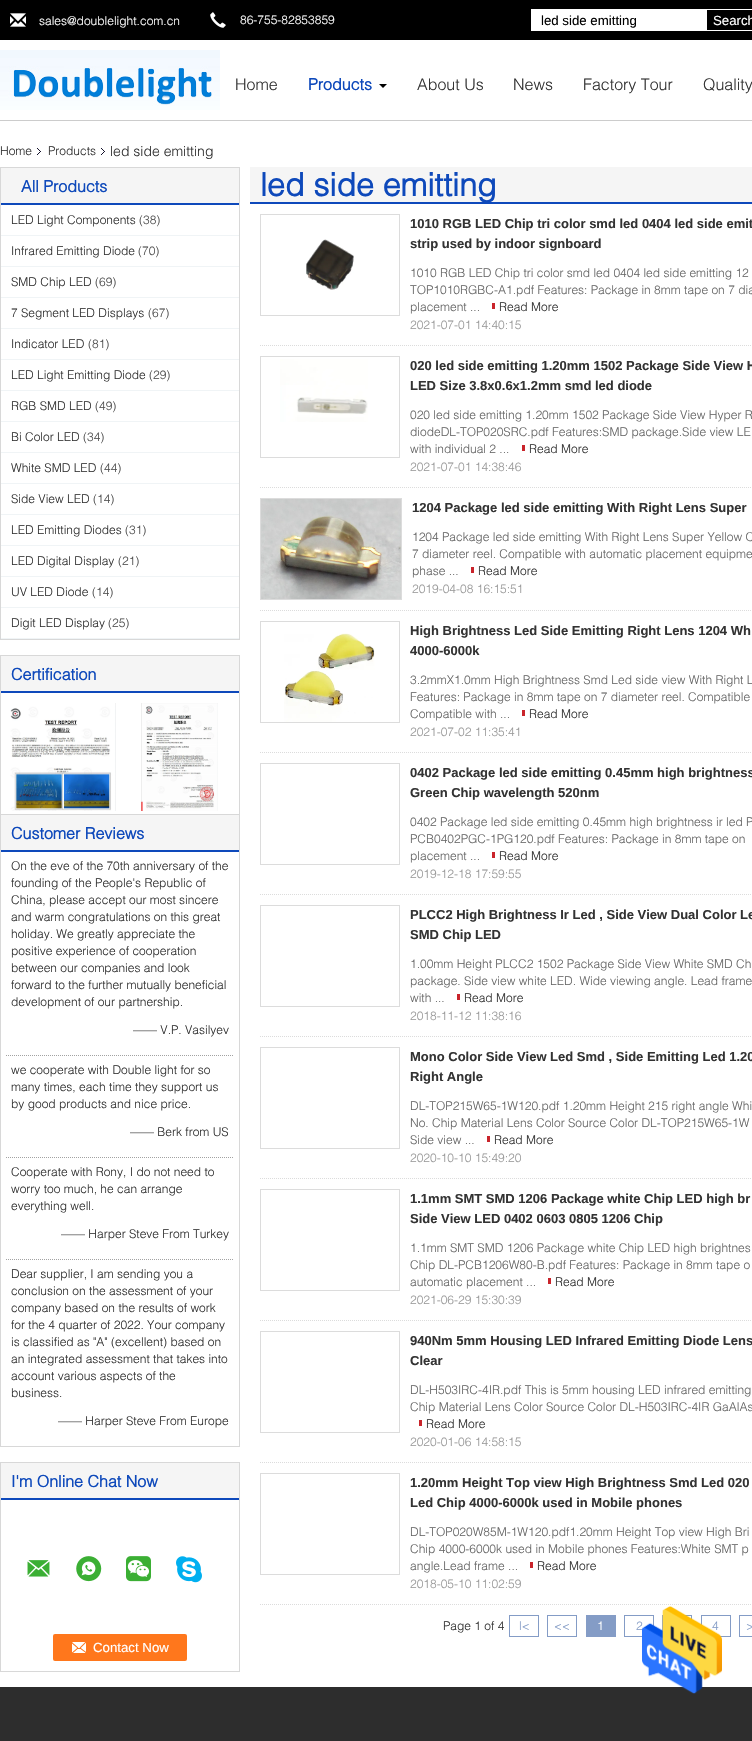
void draw(SkCanvas* canvas) {
    SkPaint paint;
    paint.setAntiAlias(true);
    auto face = [&](const char* family, int weight, float size, bool italic = false) {
        SkFontStyle style(weight, SkFontStyle::kNormal_Width,
            italic ? SkFontStyle::kItalic_Slant : SkFontStyle::kUpright_Slant);
        SkFont result(fontMgr->matchFamilyStyle(family, style), size);
        result.setSubpixel(true);
        return result;
    };
    auto write = [&](const char* s, float x, float y, const SkFont& font, SkColor color) {
        SkPaint ink(SkColor4f::FromColor(color));
        ink.setAntiAlias(true);
        canvas->drawString(s, x, y, font, ink);
    };
    auto block = [&](float x, float y, float w, float h, SkColor color) {
        SkPaint ink(SkColor4f::FromColor(color));
        ink.setAntiAlias(true);
        canvas->drawRect(SkRect::MakeXYWH(x, y, w, h), ink);
    };
    auto card = [&](float x, float y, float w, float h, float radius, SkColor color) {
        SkPaint ink(SkColor4f::FromColor(color));
        ink.setAntiAlias(true);
        canvas->drawRoundRect(SkRect::MakeXYWH(x, y, w, h), radius, radius, ink);
    };
    auto paste = [&](const char* path, float x, float y, float w, float h) {
        auto image = SkImages::DeferredFromEncodedData(SkData::MakeFromFileName(path));
        canvas->drawImageRect(image, SkRect::MakeXYWH(x, y, w, h), SkSamplingOptions());
    };
    canvas->clear(SK_ColorWHITE);
    block(0, 0, 752, 40, SK_ColorBLACK);
    paste("pic1.png", 10, 13, 16, 14);
    auto kFont1 = face("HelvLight", 300, 12);
    write("sales@doublelight.com.cn", 39, 25, kFont1, SK_ColorWHITE);
    paste("pic2.png", 210, 12, 16, 16);
    write("86-755-82853859", 240, 24, kFont1, SK_ColorWHITE);
    block(531, 9, 175, 22, SK_ColorWHITE);
    auto kFont2 = face("Liberation Sans", 400, 13.25f);
    write("led side emitting", 541, 25, kFont2, SK_ColorBLACK);
    paint.setStyle(SkPaint::kStroke_Style);
    paint.setStrokeWidth(1);
    paint.setColor(SK_ColorWHITE);
    canvas->drawRect(SkRect::MakeXYWH(706.5f, 9.5f, 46, 21), paint);
    write("Search", 713, 25, kFont2, SK_ColorWHITE);
    block(0, 120, 752, 1, SkColorSetRGB(204, 204, 204));
    paste("pic3.png", 0, 50, 220, 60);
    auto kFont3 = face("HelvLight", 300, 16);
    write("Home", 235, 90, kFont3, SkColorSetRGB(51, 51, 51));
    auto kFont4 = face("HelvLight", 700, 16);
    write("Products", 308, 90, kFont4, SkColorSetRGB(14, 73, 187));
    paint.setStyle(SkPaint::kFill_Style);
    paint.setColor(SK_ColorBLACK);
    canvas->drawPath(SkPathBuilder().moveTo(379, 84).lineTo(387, 84).lineTo(383, 88).close().detach(), paint);
    write("About Us", 417, 90, kFont3, SkColorSetRGB(51, 51, 51));
    write("News", 513, 90, kFont3, SkColorSetRGB(51, 51, 51));
    write("Factory Tour", 583, 90, kFont3, SkColorSetRGB(51, 51, 51));
    write("Quality", 703, 90, kFont3, SkColorSetRGB(51, 51, 51));
    write("Home", 0, 155, kFont1, SkColorSetRGB(51, 51, 51));
    paste("pic4.png", 37, 148, 4, 7);
    write("Products", 48, 155, kFont1, SkColorSetRGB(51, 51, 51));
    paste("pic4.png", 101, 148, 4, 7);
    auto kFont5 = face("HelvLight", 300, 14);
    write("led side emitting", 110, 156, kFont5, SkColorSetRGB(51, 51, 51));
    paint.setStyle(SkPaint::kStroke_Style);
    paint.setColor(SkColorSetRGB(216, 216, 216));
    canvas->drawRect(SkRect::MakeXYWH(0.5f, 167.5f, 239, 472), paint);
    block(1, 168, 238, 35, SkColorSetRGB(245, 245, 245));
    block(1, 203, 238, 2, SkColorSetRGB(14, 73, 187));
    write("All Products", 21, 192, kFont4, SkColorSetRGB(14, 73, 187));
    block(1, 235, 238, 1, SkColorSetRGB(240, 244, 246));
    write("LED Light Components", 11, 224, kFont1, SkColorSetRGB(51, 51, 51));
    write("(38)", 139, 224, kFont1, SkColorSetRGB(78, 78, 78));
    block(1, 266, 238, 1, SkColorSetRGB(240, 244, 246));
    write("Infrared Emitting Diode", 11, 255, kFont1, SkColorSetRGB(51, 51, 51));
    write("(70)", 138, 255, kFont1, SkColorSetRGB(78, 78, 78));
    block(1, 297, 238, 1, SkColorSetRGB(240, 244, 246));
    write("SMD Chip LED", 11, 286, kFont1, SkColorSetRGB(51, 51, 51));
    write("(69)", 95, 286, kFont1, SkColorSetRGB(78, 78, 78));
    block(1, 328, 238, 1, SkColorSetRGB(240, 244, 246));
    write("7 Segment LED Displays", 11, 317, kFont1, SkColorSetRGB(51, 51, 51));
    write("(67)", 148, 317, kFont1, SkColorSetRGB(78, 78, 78));
    block(1, 359, 238, 1, SkColorSetRGB(240, 244, 246));
    write("Indicator LED", 11, 348, kFont1, SkColorSetRGB(51, 51, 51));
    write("(81)", 88, 348, kFont1, SkColorSetRGB(78, 78, 78));
    block(1, 390, 238, 1, SkColorSetRGB(240, 244, 246));
    write("LED Light Emitting Diode", 11, 379, kFont1, SkColorSetRGB(51, 51, 51));
    write("(29)", 149, 379, kFont1, SkColorSetRGB(78, 78, 78));
    block(1, 421, 238, 1, SkColorSetRGB(240, 244, 246));
    write("RGB SMD LED", 11, 410, kFont1, SkColorSetRGB(51, 51, 51));
    write("(49)", 95, 410, kFont1, SkColorSetRGB(78, 78, 78));
    block(1, 452, 238, 1, SkColorSetRGB(240, 244, 246));
    write("Bi Color LED", 11, 441, kFont1, SkColorSetRGB(51, 51, 51));
    write("(34)", 83, 441, kFont1, SkColorSetRGB(78, 78, 78));
    block(1, 483, 238, 1, SkColorSetRGB(240, 244, 246));
    write("White SMD LED", 11, 472, kFont1, SkColorSetRGB(51, 51, 51));
    write("(44)", 100, 472, kFont1, SkColorSetRGB(78, 78, 78));
    block(1, 514, 238, 1, SkColorSetRGB(240, 244, 246));
    write("Side View LED", 11, 503, kFont1, SkColorSetRGB(51, 51, 51));
    write("(14)", 93, 503, kFont1, SkColorSetRGB(78, 78, 78));
    block(1, 545, 238, 1, SkColorSetRGB(240, 244, 246));
    write("LED Emitting Diodes", 11, 534, kFont1, SkColorSetRGB(51, 51, 51));
    write("(31)", 125, 534, kFont1, SkColorSetRGB(78, 78, 78));
    block(1, 576, 238, 1, SkColorSetRGB(240, 244, 246));
    write("LED Digital Display", 11, 565, kFont1, SkColorSetRGB(51, 51, 51));
    write("(21)", 118, 565, kFont1, SkColorSetRGB(78, 78, 78));
    block(1, 607, 238, 1, SkColorSetRGB(240, 244, 246));
    write("UV LED Diode", 11, 596, kFont1, SkColorSetRGB(51, 51, 51));
    write("(14)", 92, 596, kFont1, SkColorSetRGB(78, 78, 78));
    block(1, 638, 238, 1, SkColorSetRGB(240, 244, 246));
    write("Digit LED Display", 11, 627, kFont1, SkColorSetRGB(51, 51, 51));
    write("(25)", 108, 627, kFont1, SkColorSetRGB(78, 78, 78));
    canvas->drawRect(SkRect::MakeXYWH(0.5f, 655.5f, 239, 159), paint);
    block(1, 656, 238, 35, SkColorSetRGB(245, 245, 245));
    block(1, 691, 238, 2, SkColorSetRGB(14, 73, 187));
    write("Certification", 11, 680, kFont4, SkColorSetRGB(14, 73, 187));
    paste("pic5.png", 10, 703, 106, 108);
    paste("pic6.png", 141, 703, 77, 108);
    block(239, 815, 1, 632, SkColorSetRGB(216, 216, 216));
    block(0, 1446, 240, 1, SkColorSetRGB(216, 216, 216));
    block(0, 815, 1, 632, SkColorSetRGB(216, 216, 216));
    block(1, 815, 238, 35, SkColorSetRGB(245, 245, 245));
    block(1, 850, 238, 2, SkColorSetRGB(14, 73, 187));
    write("Customer Reviews", 11, 839, kFont4, SkColorSetRGB(14, 73, 187));
    paint.setColor(SkColorSetRGB(162, 162, 162));
    paint.setPathEffect(SkDashPathEffect::Make({{1, 1}}, 0));
    canvas->drawPath(SkPathBuilder().moveTo(6, 1055.5f).lineTo(234, 1055.5f).detach(), paint);
    paint.setPathEffect(nullptr);
    write("On the eve of the 70th anniversary of the", 11, 870, kFont1, SkColorSetRGB(51, 51, 51));
    write("founding of the People's Republic of", 11, 887, kFont1, SkColorSetRGB(51, 51, 51));
    write("China, please accept our most sincere", 11, 904, kFont1, SkColorSetRGB(51, 51, 51));
    write("and warm congratulations on this great", 11, 921, kFont1, SkColorSetRGB(51, 51, 51));
    write("holiday. We greatly appreciate the", 11, 938, kFont1, SkColorSetRGB(51, 51, 51));
    write("positive experience of cooperation", 11, 955, kFont1, SkColorSetRGB(51, 51, 51));
    write("between our companies and look", 11, 972, kFont1, SkColorSetRGB(51, 51, 51));
    write("forward to the further mutually beneficial", 11, 989, kFont1, SkColorSetRGB(51, 51, 51));
    write("development of our partnership.", 11, 1006, kFont1, SkColorSetRGB(51, 51, 51));
    write("—— V.P. Vasilyev", 133, 1034, kFont1, SkColorSetRGB(51, 51, 51));
    paint.setPathEffect(SkDashPathEffect::Make({{1, 1}}, 0));
    canvas->drawPath(SkPathBuilder().moveTo(6, 1157.5f).lineTo(234, 1157.5f).detach(), paint);
    paint.setPathEffect(nullptr);
    write("we cooperate with Double light for so", 11, 1074, kFont1, SkColorSetRGB(51, 51, 51));
    write("many times, each time they support us", 11, 1091, kFont1, SkColorSetRGB(51, 51, 51));
    write("by good products and nice price.", 11, 1108, kFont1, SkColorSetRGB(51, 51, 51));
    write("—— Berk from US", 130, 1136, kFont1, SkColorSetRGB(51, 51, 51));
    paint.setPathEffect(SkDashPathEffect::Make({{1, 1}}, 0));
    canvas->drawPath(SkPathBuilder().moveTo(6, 1259.5f).lineTo(234, 1259.5f).detach(), paint);
    paint.setPathEffect(nullptr);
    write("Cooperate with Rony, I do not need to", 11, 1176, kFont1, SkColorSetRGB(51, 51, 51));
    write("worry too much, he can arrange", 11, 1193, kFont1, SkColorSetRGB(51, 51, 51));
    write("everything well.", 11, 1210, kFont1, SkColorSetRGB(51, 51, 51));
    write("—— Harper Steve From Turkey", 61, 1238, kFont1, SkColorSetRGB(51, 51, 51));
    write("Dear supplier, I am sending you a", 11, 1278, kFont1, SkColorSetRGB(51, 51, 51));
    write("conclusion on the assessment of your", 11, 1295, kFont1, SkColorSetRGB(51, 51, 51));
    write("company based on the results of work", 11, 1312, kFont1, SkColorSetRGB(51, 51, 51));
    write("for the 4 quarter of 2022. Your company", 11, 1329, kFont1, SkColorSetRGB(51, 51, 51));
    write("is classified as \"A\" (excellent) based on", 11, 1346, kFont1, SkColorSetRGB(51, 51, 51));
    write("an integrated assessment that takes into", 11, 1363, kFont1, SkColorSetRGB(51, 51, 51));
    write("account various aspects of the", 11, 1380, kFont1, SkColorSetRGB(51, 51, 51));
    write("business.", 11, 1397, kFont1, SkColorSetRGB(51, 51, 51));
    write("—— Harper Steve From Europe", 58, 1425, kFont1, SkColorSetRGB(51, 51, 51));
    paint.setColor(SkColorSetRGB(216, 216, 216));
    canvas->drawRect(SkRect::MakeXYWH(0.5f, 1462.5f, 239, 209), paint);
    block(1, 1463, 238, 35, SkColorSetRGB(245, 245, 245));
    block(1, 1498, 238, 2, SkColorSetRGB(14, 73, 187));
    write("I'm Online Chat Now", 11, 1487, kFont4, SkColorSetRGB(14, 73, 187));
    paste("pic7.png", 27, 1560, 23, 17);
    paste("pic8.png", 76, 1556, 26, 26);
    paste("pic9.png", 126, 1556, 25, 26);
    paste("pic10.png", 176, 1556, 26, 27);
    card(53, 1634, 134, 27, 2, SkColorSetRGB(255, 119, 28));
    paste("pic11.png", 72, 1642, 14, 11);
    write("Contact Now", 93, 1652, kFont2, SK_ColorWHITE);
    block(250, 167, 502, 35, SkColorSetRGB(245, 245, 245));
    block(250, 202, 502, 2, SkColorSetRGB(14, 73, 187));
    canvas->save();
    canvas->clipRect(SkRect::MakeXYWH(250, 167, 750, 35));
    auto kFont6 = face("HelvLight", 700, 32);
    write("led side emitting", 260, 196, kFont6, SkColorSetRGB(14, 73, 187));
    canvas->restore();
    paint.setColor(SkColorSetRGB(220, 220, 220));
    paint.setPathEffect(SkDashPathEffect::Make({{1, 1}}, 0));
    canvas->drawPath(SkPathBuilder().moveTo(260, 345.5f).lineTo(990, 345.5f).detach(), paint);
    paint.setPathEffect(nullptr);
    canvas->drawRect(SkRect::MakeXYWH(260.5f, 214.5f, 139, 101), paint);
    paste("pic12.png", 306, 239, 48, 51);
    auto kFont7 = face("Liberation Sans", 700, 13);
    write("1010 RGB LED Chip tri color smd led 0404 led side emit", 410, 228, kFont7, SkColorSetRGB(51, 51, 51));
    write("strip used by indoor signboard", 410, 248, kFont7, SkColorSetRGB(51, 51, 51));
    write("1010 RGB LED Chip tri color smd led 0404 led side emitting 12", 410, 277, kFont1, SkColorSetRGB(102, 102, 102));
    write("TOP1010RGBC-A1.pdf Features: Package in 8mm tape on 7 dia", 410, 294, kFont1, SkColorSetRGB(102, 102, 102));
    write("placement ...", 410, 311, kFont1, SkColorSetRGB(102, 102, 102));
    write("Read More", 499, 311, kFont1, SkColorSetRGB(51, 51, 51));
    block(492, 303, 3, 6, SkColorSetRGB(201, 36, 43));
    write("2021-07-01 14:40:15", 410, 329, kFont1, SkColorSetRGB(153, 153, 153));
    paint.setPathEffect(SkDashPathEffect::Make({{1, 1}}, 0));
    canvas->drawPath(SkPathBuilder().moveTo(260, 487.5f).lineTo(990, 487.5f).detach(), paint);
    paint.setPathEffect(nullptr);
    canvas->drawRect(SkRect::MakeXYWH(260.5f, 356.5f, 139, 101), paint);
    paste("pic13.png", 280, 359, 88, 63);
    write("020 led side emitting 1.20mm 1502 Package Side View H", 410, 370, kFont7, SkColorSetRGB(51, 51, 51));
    write("LED Size 3.8x0.6x1.2mm smd led diode", 410, 390, kFont7, SkColorSetRGB(51, 51, 51));
    write("020 led side emitting 1.20mm 1502 Package Side View Hyper R", 410, 419, kFont1, SkColorSetRGB(102, 102, 102));
    write("diodeDL-TOP020SRC.pdf Features:SMD package.Side view LE", 410, 436, kFont1, SkColorSetRGB(102, 102, 102));
    write("with individual 2 ...", 410, 453, kFont1, SkColorSetRGB(102, 102, 102));
    write("Read More", 529, 453, kFont1, SkColorSetRGB(51, 51, 51));
    block(522, 445, 3, 6, SkColorSetRGB(201, 36, 43));
    write("2021-07-01 14:38:46", 410, 471, kFont1, SkColorSetRGB(153, 153, 153));
    paint.setPathEffect(SkDashPathEffect::Make({{1, 1}}, 0));
    canvas->drawPath(SkPathBuilder().moveTo(260, 610.5f).lineTo(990, 610.5f).detach(), paint);
    paint.setPathEffect(nullptr);
    canvas->drawRect(SkRect::MakeXYWH(260.5f, 498.5f, 141, 101), paint);
    paste("pic14.png", 261, 499, 140, 100);
    write("1204 Package led side emitting With Right Lens Super", 412, 512, kFont7, SkColorSetRGB(51, 51, 51));
    write("1204 Package led side emitting With Right Lens Super Yellow C", 412, 541, kFont1, SkColorSetRGB(102, 102, 102));
    write("7 diameter reel. Compatible with automatic placement equipme", 412, 558, kFont1, SkColorSetRGB(102, 102, 102));
    write("phase ...", 412, 575, kFont1, SkColorSetRGB(102, 102, 102));
    write("Read More", 478, 575, kFont1, SkColorSetRGB(51, 51, 51));
    block(471, 567, 3, 6, SkColorSetRGB(201, 36, 43));
    write("2019-04-08 16:15:51", 412, 593, kFont1, SkColorSetRGB(153, 153, 153));
    paint.setPathEffect(SkDashPathEffect::Make({{1, 1}}, 0));
    canvas->drawPath(SkPathBuilder().moveTo(260, 752.5f).lineTo(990, 752.5f).detach(), paint);
    paint.setPathEffect(nullptr);
    canvas->drawRect(SkRect::MakeXYWH(260.5f, 621.5f, 139, 101), paint);
    paste("pic15.png", 284, 633, 91, 89);
    write("High Brightness Led Side Emitting Right Lens 1204 Wh", 410, 635, kFont7, SkColorSetRGB(51, 51, 51));
    write("4000-6000k", 410, 655, kFont7, SkColorSetRGB(51, 51, 51));
    write("3.2mmX1.0mm High Brightness Smd Led side view With Right L", 410, 684, kFont1, SkColorSetRGB(102, 102, 102));
    write("Features: Package in 8mm tape on 7 diameter reel. Compatible", 410, 701, kFont1, SkColorSetRGB(102, 102, 102));
    write("Compatible with ...", 410, 718, kFont1, SkColorSetRGB(102, 102, 102));
    write("Read More", 529, 718, kFont1, SkColorSetRGB(51, 51, 51));
    block(522, 710, 3, 6, SkColorSetRGB(201, 36, 43));
    write("2021-07-02 11:35:41", 410, 736, kFont1, SkColorSetRGB(153, 153, 153));
    paint.setPathEffect(SkDashPathEffect::Make({{1, 1}}, 0));
    canvas->drawPath(SkPathBuilder().moveTo(260, 894.5f).lineTo(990, 894.5f).detach(), paint);
    paint.setPathEffect(nullptr);
    canvas->drawRect(SkRect::MakeXYWH(260.5f, 763.5f, 139, 101), paint);
    write("0402 Package led side emitting 0.45mm high brightness", 410, 777, kFont7, SkColorSetRGB(51, 51, 51));
    write("Green Chip wavelength 520nm", 410, 797, kFont7, SkColorSetRGB(51, 51, 51));
    write("0402 Package led side emitting 0.45mm high brightness ir led P", 410, 826, kFont1, SkColorSetRGB(102, 102, 102));
    write("PCB0402PGC-1PG120.pdf Features: Package in 8mm tape on", 410, 843, kFont1, SkColorSetRGB(102, 102, 102));
    write("placement ...", 410, 860, kFont1, SkColorSetRGB(102, 102, 102));
    write("Read More", 499, 860, kFont1, SkColorSetRGB(51, 51, 51));
    block(492, 852, 3, 6, SkColorSetRGB(201, 36, 43));
    write("2019-12-18 17:59:55", 410, 878, kFont1, SkColorSetRGB(153, 153, 153));
    paint.setPathEffect(SkDashPathEffect::Make({{1, 1}}, 0));
    canvas->drawPath(SkPathBuilder().moveTo(260, 1036.5f).lineTo(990, 1036.5f).detach(), paint);
    paint.setPathEffect(nullptr);
    canvas->drawRect(SkRect::MakeXYWH(260.5f, 905.5f, 139, 101), paint);
    write("PLCC2 High Brightness Ir Led , Side View Dual Color Le", 410, 919, kFont7, SkColorSetRGB(51, 51, 51));
    write("SMD Chip LED", 410, 939, kFont7, SkColorSetRGB(51, 51, 51));
    write("1.00mm Height PLCC2 1502 Package Side View White SMD Ch", 410, 968, kFont1, SkColorSetRGB(102, 102, 102));
    write("package. Side view white LED. Wide viewing angle. Lead frame", 410, 985, kFont1, SkColorSetRGB(102, 102, 102));
    write("with ...", 410, 1002, kFont1, SkColorSetRGB(102, 102, 102));
    write("Read More", 464, 1002, kFont1, SkColorSetRGB(51, 51, 51));
    block(457, 994, 3, 6, SkColorSetRGB(201, 36, 43));
    write("2018-11-12 11:38:16", 410, 1020, kFont1, SkColorSetRGB(153, 153, 153));
    paint.setPathEffect(SkDashPathEffect::Make({{1, 1}}, 0));
    canvas->drawPath(SkPathBuilder().moveTo(260, 1178.5f).lineTo(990, 1178.5f).detach(), paint);
    paint.setPathEffect(nullptr);
    canvas->drawRect(SkRect::MakeXYWH(260.5f, 1047.5f, 139, 101), paint);
    write("Mono Color Side View Led Smd , Side Emitting Led 1.20", 410, 1061, kFont7, SkColorSetRGB(51, 51, 51));
    write("Right Angle", 410, 1081, kFont7, SkColorSetRGB(51, 51, 51));
    write("DL-TOP215W65-1W120.pdf 1.20mm Height 215 right angle Whi", 410, 1110, kFont1, SkColorSetRGB(102, 102, 102));
    write("No. Chip Material Lens Color Source Color DL-TOP215W65-1W", 410, 1127, kFont1, SkColorSetRGB(102, 102, 102));
    write("Side view ...", 410, 1144, kFont1, SkColorSetRGB(102, 102, 102));
    write("Read More", 494, 1144, kFont1, SkColorSetRGB(51, 51, 51));
    block(487, 1136, 3, 6, SkColorSetRGB(201, 36, 43));
    write("2020-10-10 15:49:20", 410, 1162, kFont1, SkColorSetRGB(153, 153, 153));
    paint.setPathEffect(SkDashPathEffect::Make({{1, 1}}, 0));
    canvas->drawPath(SkPathBuilder().moveTo(260, 1320.5f).lineTo(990, 1320.5f).detach(), paint);
    paint.setPathEffect(nullptr);
    canvas->drawRect(SkRect::MakeXYWH(260.5f, 1189.5f, 139, 101), paint);
    write("1.1mm SMT SMD 1206 Package white Chip LED high br", 410, 1203, kFont7, SkColorSetRGB(51, 51, 51));
    write("Side View LED 0402 0603 0805 1206 Chip", 410, 1223, kFont7, SkColorSetRGB(51, 51, 51));
    write("1.1mm SMT SMD 1206 Package white Chip LED high brightnes", 410, 1252, kFont1, SkColorSetRGB(102, 102, 102));
    write("Chip DL-PCB1206W80-B.pdf Features: Package in 8mm tape o", 410, 1269, kFont1, SkColorSetRGB(102, 102, 102));
    write("automatic placement ...", 410, 1286, kFont1, SkColorSetRGB(102, 102, 102));
    write("Read More", 555, 1286, kFont1, SkColorSetRGB(51, 51, 51));
    block(548, 1278, 3, 6, SkColorSetRGB(201, 36, 43));
    write("2021-06-29 15:30:39", 410, 1304, kFont1, SkColorSetRGB(153, 153, 153));
    paint.setPathEffect(SkDashPathEffect::Make({{1, 1}}, 0));
    canvas->drawPath(SkPathBuilder().moveTo(260, 1462.5f).lineTo(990, 1462.5f).detach(), paint);
    paint.setPathEffect(nullptr);
    canvas->drawRect(SkRect::MakeXYWH(260.5f, 1331.5f, 139, 101), paint);
    write("940Nm 5mm Housing LED Infrared Emitting Diode Lens", 410, 1345, kFont7, SkColorSetRGB(51, 51, 51));
    write("Clear", 410, 1365, kFont7, SkColorSetRGB(51, 51, 51));
    write("DL-H503IRC-4IR.pdf This is 5mm housing LED infrared emitting", 410, 1394, kFont1, SkColorSetRGB(102, 102, 102));
    write("Chip Material Lens Color Source Color DL-H503IRC-4IR GaAlAs", 410, 1411, kFont1, SkColorSetRGB(102, 102, 102));
    write("Read More", 426, 1428, kFont1, SkColorSetRGB(51, 51, 51));
    block(419, 1420, 3, 6, SkColorSetRGB(201, 36, 43));
    write("2020-01-06 14:58:15", 410, 1446, kFont1, SkColorSetRGB(153, 153, 153));
    paint.setPathEffect(SkDashPathEffect::Make({{1, 1}}, 0));
    canvas->drawPath(SkPathBuilder().moveTo(260, 1604.5f).lineTo(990, 1604.5f).detach(), paint);
    paint.setPathEffect(nullptr);
    canvas->drawRect(SkRect::MakeXYWH(260.5f, 1473.5f, 139, 101), paint);
    write("1.20mm Height Top view High Brightness Smd Led 020", 410, 1487, kFont7, SkColorSetRGB(51, 51, 51));
    write("Led Chip 4000-6000k used in Mobile phones", 410, 1507, kFont7, SkColorSetRGB(51, 51, 51));
    write("DL-TOP020W85M-1W120.pdf1.20mm Height Top view High Bri", 410, 1536, kFont1, SkColorSetRGB(102, 102, 102));
    write("Chip 4000-6000k used in Mobile phones Features:White SMT p", 410, 1553, kFont1, SkColorSetRGB(102, 102, 102));
    write("angle.Lead frame ...", 410, 1570, kFont1, SkColorSetRGB(102, 102, 102));
    write("Read More", 537, 1570, kFont1, SkColorSetRGB(51, 51, 51));
    block(530, 1562, 3, 6, SkColorSetRGB(201, 36, 43));
    write("2018-05-10 11:02:59", 410, 1588, kFont1, SkColorSetRGB(153, 153, 153));
    write("Page 1 of 4", 443, 1630, kFont1, SkColorSetRGB(51, 51, 51));
    paint.setColor(SkColorSetRGB(132, 156, 198));
    canvas->drawRect(SkRect::MakeXYWH(509.5f, 1615.5f, 29, 21), paint);
    write("|<", 519, 1630, kFont1, SkColorSetRGB(132, 156, 198));
    canvas->drawRect(SkRect::MakeXYWH(547.5f, 1615.5f, 29, 21), paint);
    write("<<", 554, 1630, kFont1, SkColorSetRGB(132, 156, 198));
    block(586, 1615, 30, 22, SkColorSetRGB(132, 156, 198));
    write("1", 597, 1630, kFont1, SK_ColorWHITE);
    canvas->drawRect(SkRect::MakeXYWH(624.5f, 1615.5f, 29, 21), paint);
    write("2", 636, 1630, kFont1, SkColorSetRGB(132, 156, 198));
    canvas->drawRect(SkRect::MakeXYWH(662.5f, 1615.5f, 29, 21), paint);
    canvas->drawRect(SkRect::MakeXYWH(701.5f, 1615.5f, 29, 21), paint);
    write("4", 712, 1630, kFont1, SkColorSetRGB(132, 156, 198));
    canvas->drawRect(SkRect::MakeXYWH(739.5f, 1615.5f, 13, 21), paint);
    write(">", 746, 1630, kFont1, SkColorSetRGB(132, 156, 198));
    block(0, 1687, 752, 54, SkColorSetRGB(45, 45, 45));
    paste("pic16.png", 642, 1606, 80, 88);
}
